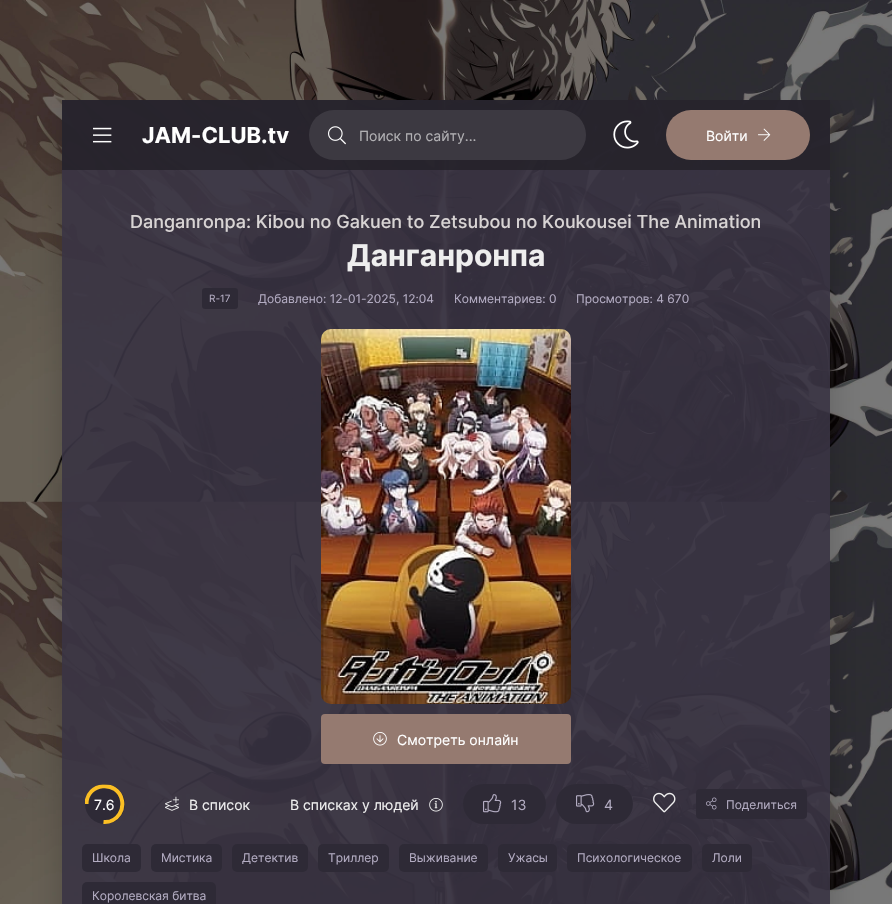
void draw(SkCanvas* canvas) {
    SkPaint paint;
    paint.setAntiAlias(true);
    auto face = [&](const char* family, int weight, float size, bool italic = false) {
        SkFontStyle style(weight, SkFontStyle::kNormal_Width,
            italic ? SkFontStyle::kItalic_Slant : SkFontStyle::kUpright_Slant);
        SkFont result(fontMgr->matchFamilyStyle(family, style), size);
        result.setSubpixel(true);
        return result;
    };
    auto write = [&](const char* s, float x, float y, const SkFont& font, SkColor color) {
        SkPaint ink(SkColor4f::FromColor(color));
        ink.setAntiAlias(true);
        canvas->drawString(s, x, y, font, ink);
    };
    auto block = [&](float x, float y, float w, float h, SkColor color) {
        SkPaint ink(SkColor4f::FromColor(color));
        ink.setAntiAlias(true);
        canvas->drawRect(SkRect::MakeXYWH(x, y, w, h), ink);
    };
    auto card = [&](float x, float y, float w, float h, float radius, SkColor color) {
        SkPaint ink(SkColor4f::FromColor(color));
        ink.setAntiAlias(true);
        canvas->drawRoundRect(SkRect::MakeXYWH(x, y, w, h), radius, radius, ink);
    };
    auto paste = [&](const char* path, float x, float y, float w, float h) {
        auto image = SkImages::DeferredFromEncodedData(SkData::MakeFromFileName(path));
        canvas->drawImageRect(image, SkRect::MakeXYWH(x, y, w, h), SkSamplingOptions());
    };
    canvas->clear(SK_ColorWHITE);
    paste("pic1.png", 0, 0, 892, 904);
    canvas->save();
    canvas->clipRect(SkRect::MakeXYWH(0, 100, 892, 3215));
    canvas->clipPath(SkPathBuilder(SkPathFillType::kEvenOdd).moveTo(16, 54).lineTo(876, 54).lineTo(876, 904).lineTo(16, 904).close().moveTo(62, 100).lineTo(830, 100).lineTo(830, 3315).lineTo(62, 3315).close().detach(), true);
    paint.setColor(SkColorSetARGB(51, 0, 0, 0));
    paint.setMaskFilter(SkMaskFilter::MakeBlur(kNormal_SkBlurStyle, 15));
    canvas->drawRect(SkRect::MakeXYWH(62, 100, 768, 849), paint);
    paint.setMaskFilter(nullptr);
    canvas->restore();
    block(62, 100, 768, 804, SkColorSetARGB(230, 56, 51, 66));
    block(62, 100, 768, 70, SkColorSetARGB(204, 34, 31, 39));
    paste("pic2.png", 93, 127, 19, 16);
    auto kFont1 = face("Inter", 700, 22);
    write("JAM-CLUB.tv", 142, 143, kFont1, SK_ColorWHITE);
    card(309, 110, 277, 50, 25, SkColorSetRGB(60, 57, 65));
    paste("pic3.png", 328, 126, 18, 19);
    auto kFont2 = face("Inter", 400, 14);
    write("Поиск по сайту...", 359, 141, kFont2, SkColorSetRGB(177, 176, 179));
    paste("pic4.png", 613, 120, 26, 29);
    card(666, 110, 144, 50, 25, SkColorSetRGB(149, 122, 112));
    write("Войти", 706, 141, kFont2, SK_ColorWHITE);
    paste("pic5.png", 758, 128, 13, 13);
    auto kFont3 = face("Inter", 500, 18);
    write("Danganronpa: Kibou no Gakuen to Zetsubou no Koukousei The Animation", 130, 228, kFont3, SkColorSetRGB(216, 212, 212));
    auto kFont4 = face("Inter", 700, 30);
    write("Данганронпа", 347, 266, kFont4, SkColorSetRGB(238, 238, 238));
    card(202, 288, 36, 21, 3, SkColorSetRGB(46, 42, 54));
    auto kFont5 = face("Inter", 400, 10);
    write("R-17", 209, 302, kFont5, SkColorSetRGB(179, 172, 194));
    auto kFont6 = face("Inter", 400, 12);
    write("Добавлено: 12-01-2025, 12:04", 258, 303, kFont6, SkColorSetRGB(179, 172, 194));
    write("Комментариев: 0", 454, 303, kFont6, SkColorSetRGB(179, 172, 194));
    write("Просмотров: 4 670", 576, 303, kFont6, SkColorSetRGB(179, 172, 194));
    paste("pic6.png", 321, 329, 250, 375);
    card(321, 714, 250, 50, 4, SkColorSetRGB(149, 122, 112));
    paste("pic7.png", 373, 732, 14, 14);
    write("Смотреть онлайн", 397, 745, kFont2, SK_ColorWHITE);
    paint.setColor(SkColorSetRGB(46, 42, 54));
    canvas->drawCircle(105, 804, 20, paint);
    write("7.6", 94, 810, kFont2, SK_ColorWHITE);
    canvas->save();
    canvas->clipPath(SkPathBuilder().moveTo(85, 824.5f).lineTo(85, 784.5f).lineTo(125, 784.5f).lineTo(125, 824.5f).close().detach(), true);
    paint.setStyle(SkPaint::kStroke_Style);
    paint.setStrokeWidth(4);
    paint.setColor(SkColorSetRGB(251, 191, 36));
    canvas->drawPath(SkPathBuilder().moveTo(86.5f, 804).cubicTo(86.5f, 782.5f, 118, 779.5f, 122, 800.5f).cubicTo(123, 805.5f, 122, 810, 119.5f, 814).cubicTo(116, 819.5f, 109.5f, 822.5f, 103.5f, 822).detach(), paint);
    canvas->restore();
    paste("pic8.png", 165, 796, 14, 15);
    write("В список", 189, 810, kFont2, SkColorSetRGB(238, 238, 238));
    write("В списках у людей", 290, 810, kFont2, SkColorSetRGB(238, 238, 238));
    paste("pic9.png", 429, 798, 14, 14);
    card(463, 784, 83, 40, 20, SkColorSetRGB(46, 42, 54));
    paste("pic10.png", 483, 794, 19, 19);
    write("13", 511, 810, kFont2, SkColorSetRGB(179, 172, 194));
    card(556, 784, 77, 40, 20, SkColorSetRGB(46, 42, 54));
    paste("pic11.png", 576, 794, 19, 19);
    write("4", 604, 810, kFont2, SkColorSetRGB(179, 172, 194));
    paste("pic12.png", 653, 792, 23, 21);
    card(696, 789, 111, 30, 4, SkColorSetRGB(46, 42, 54));
    paste("pic13.png", 706, 797, 11, 13);
    write("Поделиться", 726, 809, kFont6, SkColorSetRGB(179, 172, 194));
    card(82, 844, 59, 28, 5, SkColorSetRGB(46, 42, 54));
    write("Школа", 92, 862, kFont6, SkColorSetRGB(179, 172, 194));
    card(151, 844, 71, 28, 5, SkColorSetRGB(46, 42, 54));
    write("Мистика", 161, 862, kFont6, SkColorSetRGB(179, 172, 194));
    card(232, 844, 76, 28, 5, SkColorSetRGB(46, 42, 54));
    write("Детектив", 242, 862, kFont6, SkColorSetRGB(179, 172, 194));
    card(318, 844, 71, 28, 5, SkColorSetRGB(46, 42, 54));
    write("Триллер", 328, 862, kFont6, SkColorSetRGB(179, 172, 194));
    card(399, 844, 89, 28, 5, SkColorSetRGB(46, 42, 54));
    write("Выживание", 409, 862, kFont6, SkColorSetRGB(179, 172, 194));
    card(498, 844, 59, 28, 5, SkColorSetRGB(46, 42, 54));
    write("Ужасы", 508, 862, kFont6, SkColorSetRGB(179, 172, 194));
    card(567, 844, 125, 28, 5, SkColorSetRGB(46, 42, 54));
    write("Психологическое", 577, 862, kFont6, SkColorSetRGB(179, 172, 194));
    card(702, 844, 50, 28, 5, SkColorSetRGB(46, 42, 54));
    write("Лоли", 712, 862, kFont6, SkColorSetRGB(179, 172, 194));
    card(82, 882, 134, 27, 5, SkColorSetRGB(46, 42, 54));
    write("Королевская битва", 92, 900, kFont6, SkColorSetRGB(179, 172, 194));
}
